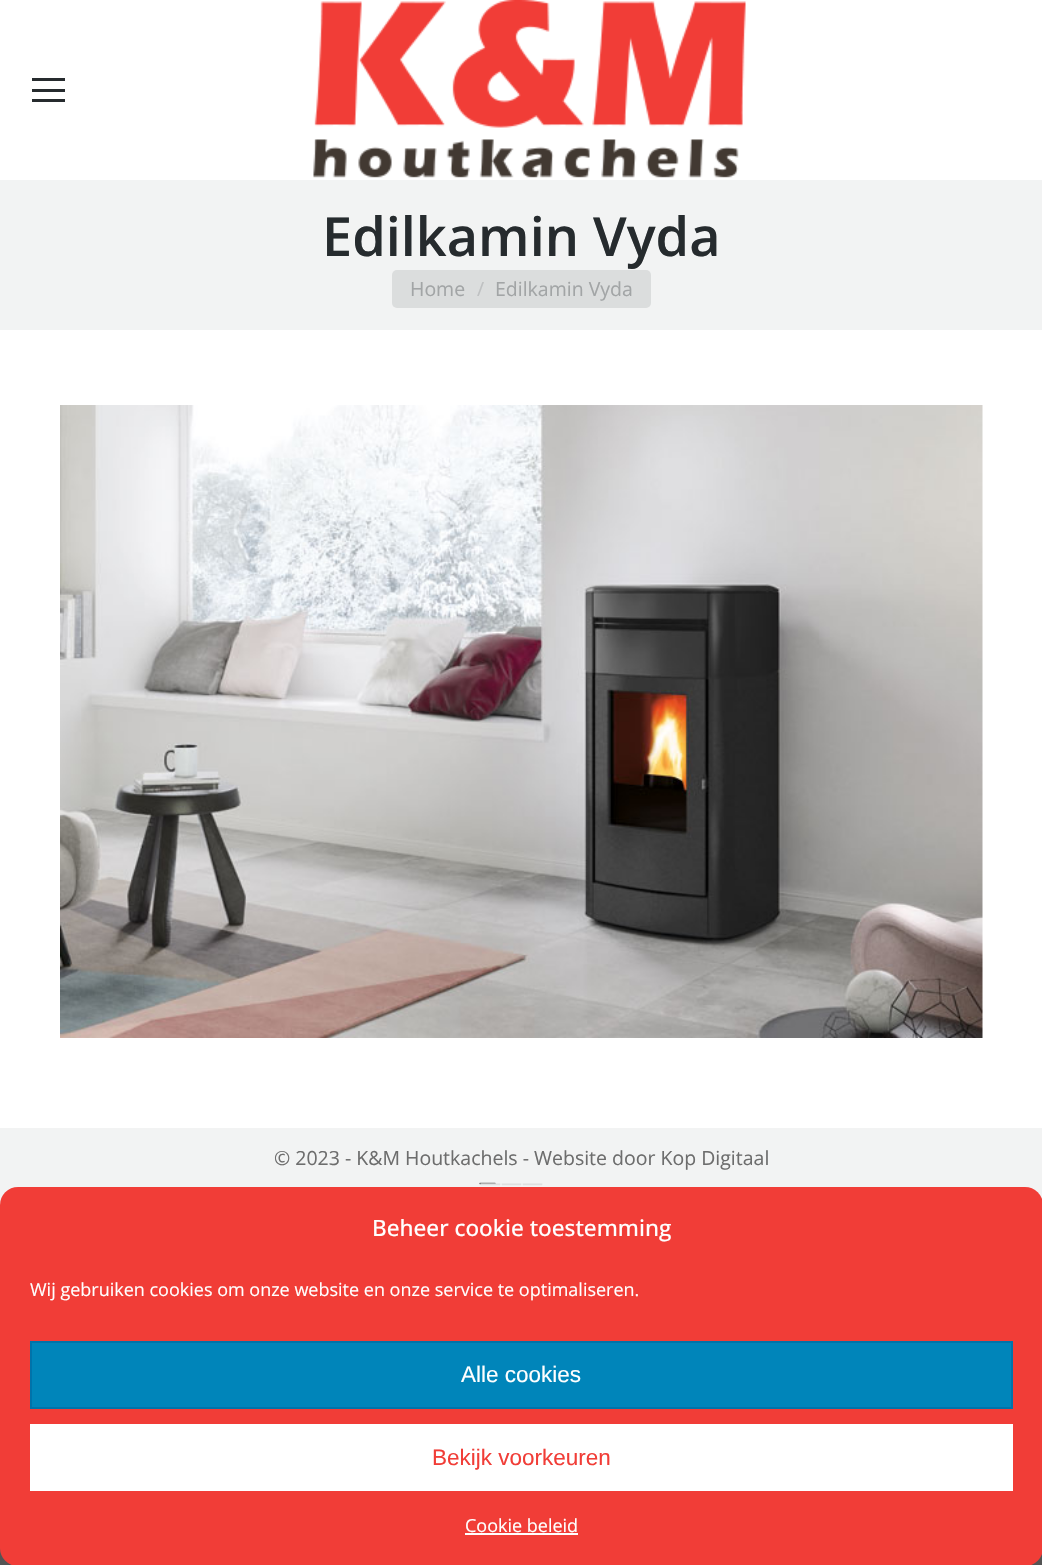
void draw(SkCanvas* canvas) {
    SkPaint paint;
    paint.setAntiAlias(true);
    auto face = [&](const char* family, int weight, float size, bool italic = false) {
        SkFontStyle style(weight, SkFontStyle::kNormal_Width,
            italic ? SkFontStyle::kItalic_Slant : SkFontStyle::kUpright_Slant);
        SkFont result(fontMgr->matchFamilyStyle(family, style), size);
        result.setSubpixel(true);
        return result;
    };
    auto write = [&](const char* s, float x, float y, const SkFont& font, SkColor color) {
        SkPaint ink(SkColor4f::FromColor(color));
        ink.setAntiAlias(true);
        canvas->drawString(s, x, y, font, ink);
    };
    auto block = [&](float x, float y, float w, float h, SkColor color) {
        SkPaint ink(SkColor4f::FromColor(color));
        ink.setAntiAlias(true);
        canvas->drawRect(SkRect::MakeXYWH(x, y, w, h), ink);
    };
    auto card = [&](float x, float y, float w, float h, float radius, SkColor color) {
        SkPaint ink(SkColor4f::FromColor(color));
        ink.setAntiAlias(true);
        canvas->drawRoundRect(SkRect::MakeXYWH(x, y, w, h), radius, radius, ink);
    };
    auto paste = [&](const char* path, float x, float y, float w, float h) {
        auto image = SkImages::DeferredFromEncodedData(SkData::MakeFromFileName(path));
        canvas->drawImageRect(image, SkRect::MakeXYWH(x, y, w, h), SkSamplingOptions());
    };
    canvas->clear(SkColorSetRGB(84, 84, 84));
    block(0, 0, 1042, 1128, SK_ColorWHITE);
    block(32, 78, 33, 3, SkColorSetRGB(38, 43, 46));
    block(32, 89, 33, 3, SkColorSetRGB(38, 43, 46));
    block(32, 99, 33, 3, SkColorSetRGB(38, 43, 46));
    paste("pic1.png", 313, 0, 433, 178);
    block(0, 180, 1042, 150, SkColorSetRGB(242, 243, 243));
    auto kFont1 = face("Open Sans", 600, 54);
    write("Edilkamin Vyda", 322, 256, kFont1, SkColorSetRGB(38, 43, 46));
    card(392, 270, 259, 38, 5, SkColorSetRGB(219, 221, 221));
    auto kFont2 = face("Open Sans", 400, 19.5f);
    write("Home", 410, 296, kFont2, SkColorSetRGB(162, 165, 166));
    write("/", 477, 296, kFont2, SkColorSetRGB(191, 193, 194));
    write("Edilkamin Vyda", 495, 296, kFont2, SkColorSetRGB(162, 165, 166));
    paste("pic2.png", 60, 405, 923, 633);
    block(0, 1128, 1042, 77, SkColorSetRGB(242, 243, 243));
    write("© 2023 - K&M Houtkachels - Website door Kop Digitaal", 274, 1165, kFont2, SkColorSetRGB(109, 109, 109));
    paste("pic3.png", 479, 1182, 17, 3);
    auto kFont3 = face("Open Sans", 400, 21);
    write("———", 480, 1190, kFont3, SkColorSetRGB(223, 224, 224));
    card(0, 1187, 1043, 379, 18, SkColorSetRGB(241, 61, 55));
    auto kFont4 = face("Open Sans", 500, 22.5f);
    write("Beheer cookie toestemming", 372, 1236, kFont4, SK_ColorWHITE);
    auto kFont5 = face("Open Sans", 400, 18);
    write("Wij gebruiken cookies om onze website en onze service te optimaliseren.", 30, 1296, kFont5, SK_ColorWHITE);
    paint.setColor(SkColorSetRGB(0, 133, 186));
    canvas->drawRect(SkRect::MakeXYWH(31, 1342, 981, 66), paint);
    paint.setStyle(SkPaint::kStroke_Style);
    paint.setStrokeWidth(2);
    paint.setColor(SkColorSetRGB(0, 115, 170));
    canvas->drawRect(SkRect::MakeXYWH(31, 1342, 981, 66), paint);
    auto kFont6 = face("Liberation Sans", 400, 22.5f);
    write("Alle cookies", 461, 1382, kFont6, SK_ColorWHITE);
    block(30, 1424, 983, 67, SK_ColorWHITE);
    write("Bekijk voorkeuren", 432, 1465, kFont6, SkColorSetRGB(241, 61, 55));
    write("Cookie beleid", 465, 1532, kFont5, SK_ColorWHITE);
    block(465, 1533, 113, 2, SK_ColorWHITE);
}
